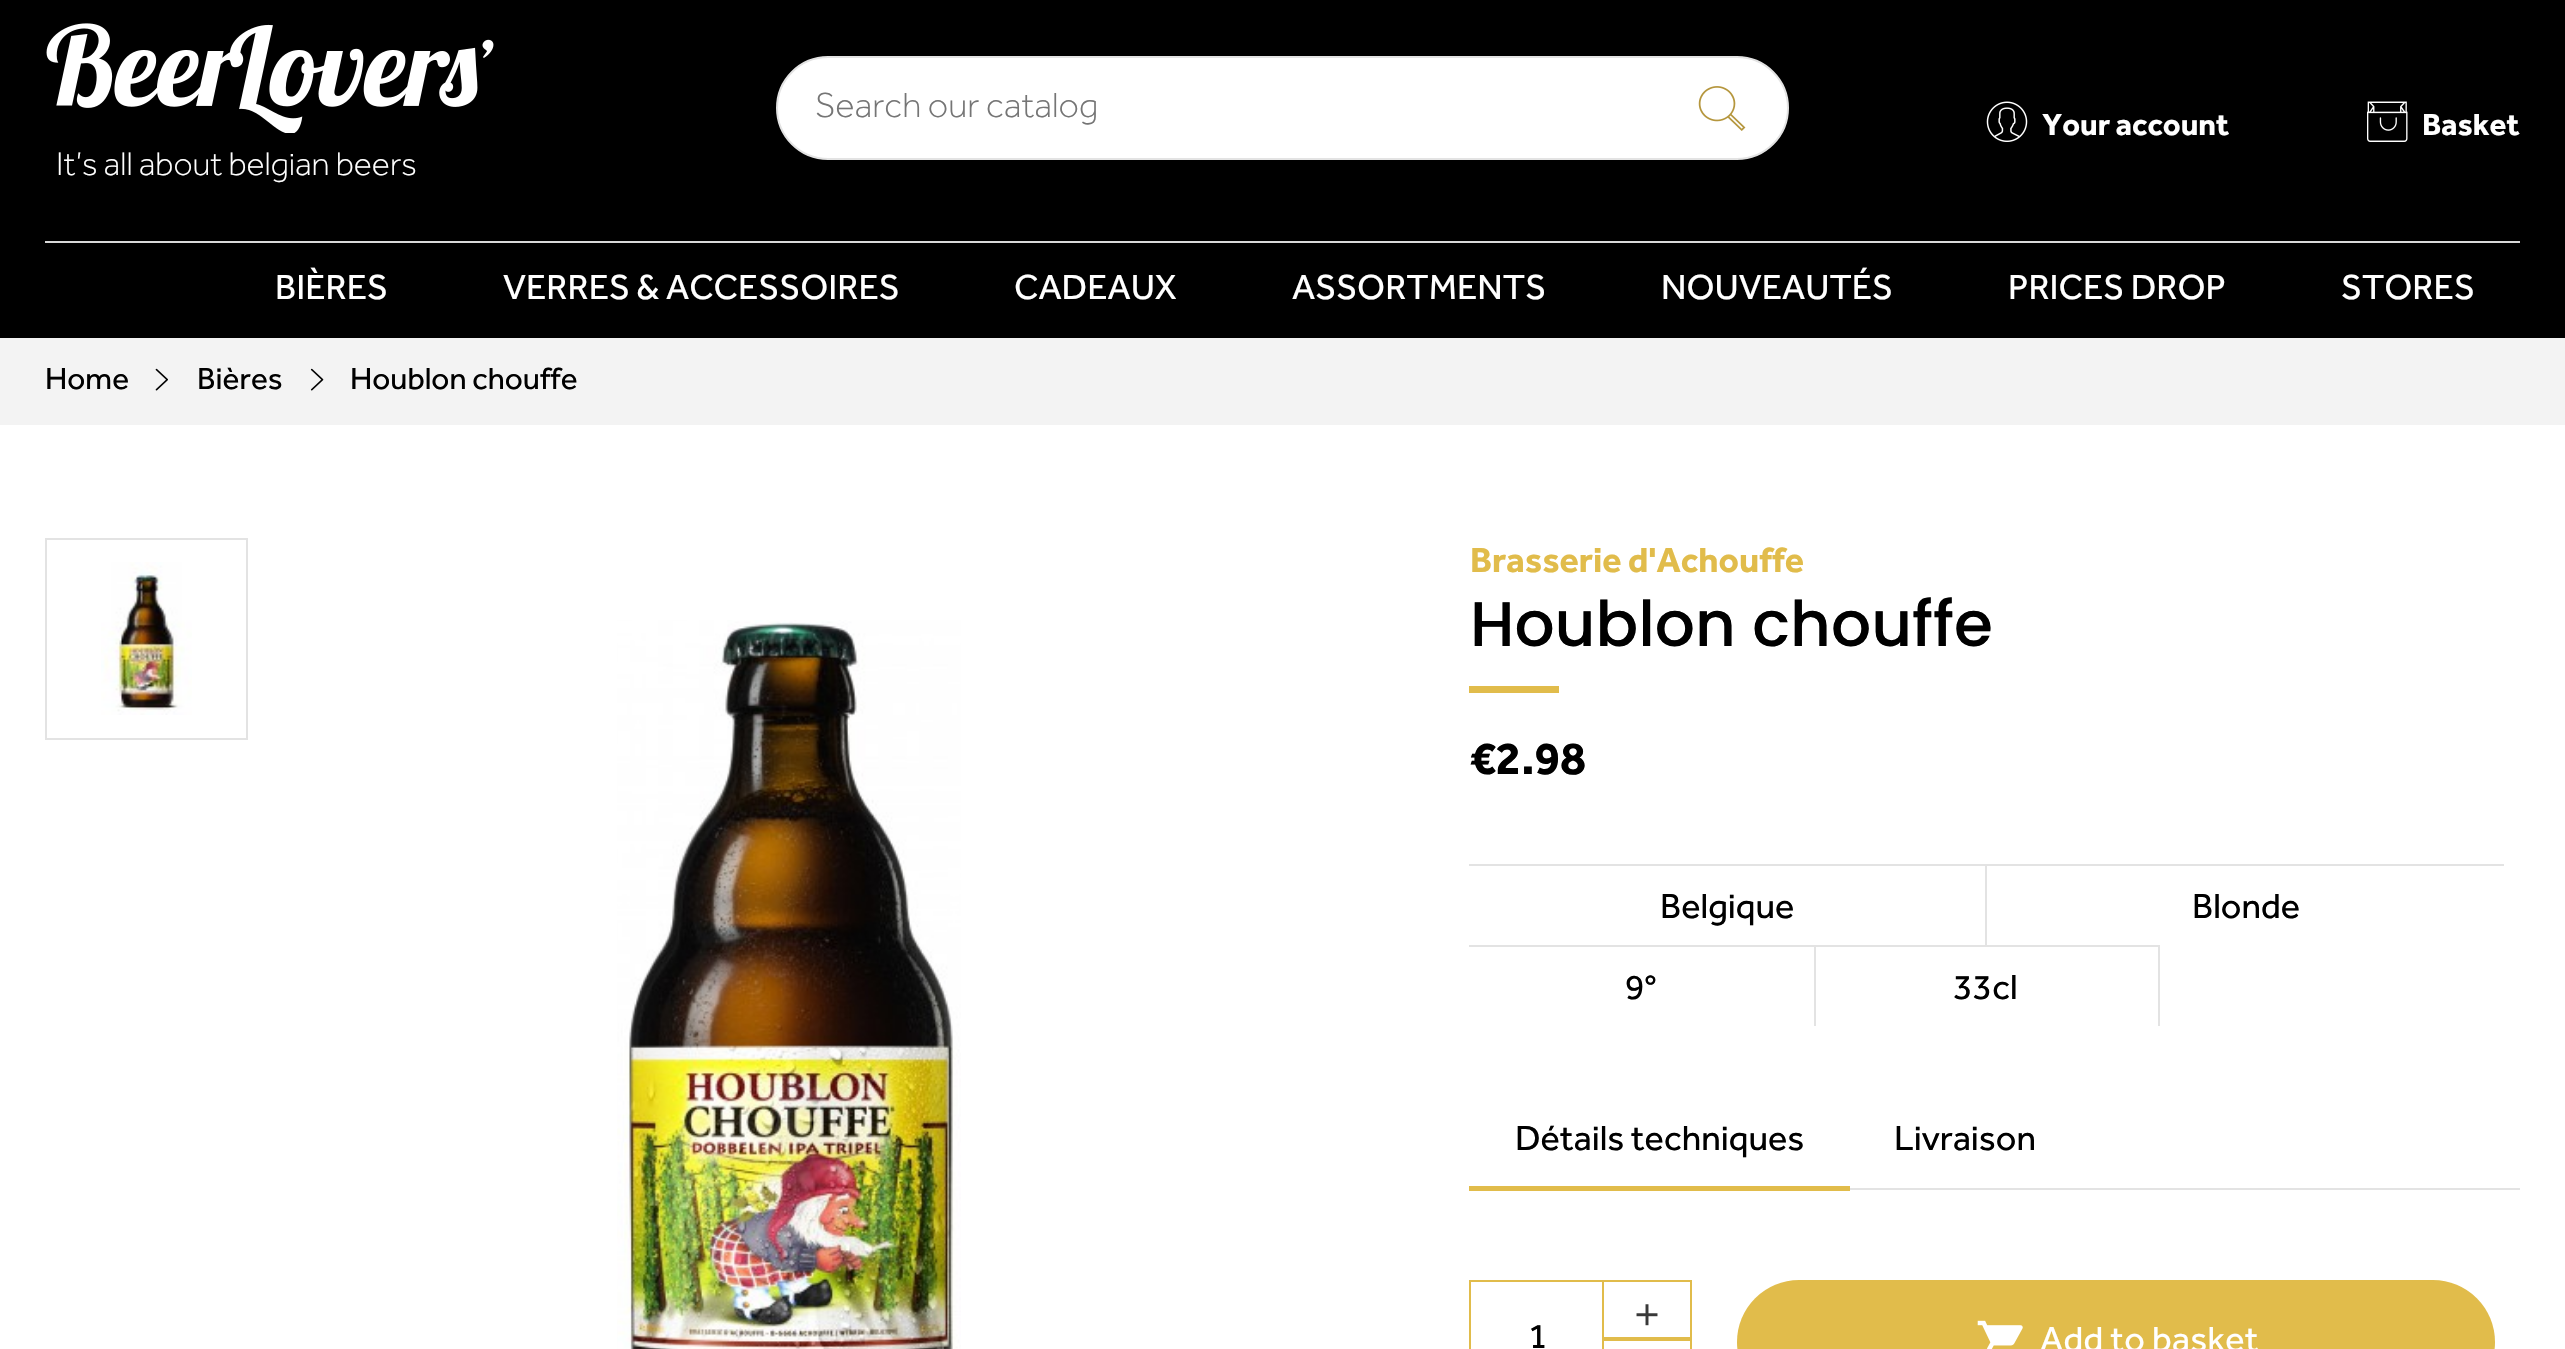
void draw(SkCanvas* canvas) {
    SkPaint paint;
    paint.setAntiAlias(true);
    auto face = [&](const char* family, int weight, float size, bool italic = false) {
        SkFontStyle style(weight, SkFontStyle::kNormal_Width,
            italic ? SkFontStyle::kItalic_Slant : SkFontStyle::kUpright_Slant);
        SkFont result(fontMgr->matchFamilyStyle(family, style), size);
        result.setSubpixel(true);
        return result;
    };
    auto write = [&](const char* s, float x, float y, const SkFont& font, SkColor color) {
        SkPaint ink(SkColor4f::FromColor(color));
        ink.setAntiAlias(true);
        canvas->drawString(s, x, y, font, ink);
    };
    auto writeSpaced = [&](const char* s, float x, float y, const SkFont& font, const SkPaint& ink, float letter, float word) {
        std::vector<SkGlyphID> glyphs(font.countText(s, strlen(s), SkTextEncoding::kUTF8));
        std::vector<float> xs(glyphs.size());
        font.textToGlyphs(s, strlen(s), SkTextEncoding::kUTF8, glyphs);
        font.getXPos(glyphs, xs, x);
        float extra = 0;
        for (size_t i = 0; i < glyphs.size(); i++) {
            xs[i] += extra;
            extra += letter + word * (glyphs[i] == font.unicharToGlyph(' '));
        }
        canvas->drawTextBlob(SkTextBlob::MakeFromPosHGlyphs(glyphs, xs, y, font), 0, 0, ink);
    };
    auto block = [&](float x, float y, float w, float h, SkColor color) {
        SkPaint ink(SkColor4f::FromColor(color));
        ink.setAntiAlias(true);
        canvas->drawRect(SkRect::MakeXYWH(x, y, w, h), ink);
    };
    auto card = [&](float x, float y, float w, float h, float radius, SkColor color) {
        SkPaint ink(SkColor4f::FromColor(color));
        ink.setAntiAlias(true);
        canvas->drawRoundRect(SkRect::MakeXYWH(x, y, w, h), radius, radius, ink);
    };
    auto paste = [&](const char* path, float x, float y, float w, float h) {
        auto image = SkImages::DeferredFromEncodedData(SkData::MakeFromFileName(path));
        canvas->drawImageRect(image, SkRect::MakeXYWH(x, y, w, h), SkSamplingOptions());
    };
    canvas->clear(SK_ColorWHITE);
    block(0, 0, 2565, 338, SK_ColorBLACK);
    paint.setColor(SK_ColorWHITE);
    canvas->drawRoundRect(SkRect::MakeXYWH(777, 57, 1011, 102), 51, 51, paint);
    paint.setStyle(SkPaint::kStroke_Style);
    paint.setStrokeWidth(2);
    paint.setColor(SkColorSetRGB(227, 227, 227));
    canvas->drawRoundRect(SkRect::MakeXYWH(777, 57, 1011, 102), 51, 51, paint);
    auto kFont1 = face("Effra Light", 300, 36);
    write("Search our catalog", 815, 117, kFont1, SkColorSetRGB(117, 117, 117));
    paste("pic1.png", 1698, 86, 48, 45);
    paste("pic2.png", 1986, 101, 42, 41);
    auto kFont2 = face("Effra", 700, 31.5f);
    write("Your account", 2042, 135, kFont2, SK_ColorWHITE);
    paste("pic3.png", 2367, 101, 41, 41);
    write("Basket", 2422, 135, kFont2, SK_ColorWHITE);
    paste("pic4.png", 46, 23, 448, 110);
    auto kFont3 = face("Effra Light", 300, 33.75f);
    write("It’s all about belgian beers", 56, 175, kFont3, SK_ColorWHITE);
    block(45, 241, 2475, 2, SkColorSetRGB(216, 216, 216));
    auto kFont4 = face("Effra", 400, 36);
    write("BIÈRES", 275, 299, kFont4, SK_ColorWHITE);
    write("VERRES & ACCESSOIRES", 503, 299, kFont4, SK_ColorWHITE);
    write("CADEAUX", 1014, 299, kFont4, SK_ColorWHITE);
    write("ASSORTMENTS", 1292, 299, kFont4, SK_ColorWHITE);
    write("NOUVEAUTÉS", 1661, 299, kFont4, SK_ColorWHITE);
    write("PRICES DROP", 2008, 299, kFont4, SK_ColorWHITE);
    write("STORES", 2341, 299, kFont4, SK_ColorWHITE);
    block(0, 338, 2565, 87, SkColorSetRGB(243, 243, 243));
    auto kFont5 = face("Effra", 400, 31.5f);
    write("Home", 45, 389, kFont5, SK_ColorBLACK);
    paste("pic5.png", 155, 368, 13, 23);
    write("Bières", 197, 389, kFont5, SK_ColorBLACK);
    paste("pic6.png", 310, 368, 14, 23);
    write("Houblon chouffe", 350, 389, kFont5, SK_ColorBLACK);
    canvas->drawRect(SkRect::MakeXYWH(46, 539, 201, 200), paint);
    paste("pic7.png", 101, 562, 91, 153);
    paste("pic8.png", 617, 620, 344, 729);
    auto kFont6 = face("Effra", 700, 36);
    write("Brasserie d'Achouffe", 1470, 572, kFont6, SkColorSetRGB(225, 188, 75));
    auto kFont7 = face("Poppins", 500, 63);
    write("Houblon chouffe", 1470, 646, kFont7, SK_ColorBLACK);
    block(1469, 686, 90, 7, SkColorSetRGB(225, 188, 75));
    auto kFont8 = face("Effra", 700, 47);
    write("€2.98", 1470, 774, kFont8, SK_ColorBLACK);
    block(1469, 864, 1035, 2, SkColorSetRGB(227, 227, 227));
    block(1985, 864, 2, 81, SkColorSetRGB(227, 227, 227));
    write("Belgique", 1660, 918, kFont4, SK_ColorBLACK);
    write("Blonde", 2192, 918, kFont4, SK_ColorBLACK);
    block(1469, 945, 691, 2, SkColorSetRGB(227, 227, 227));
    block(1814, 945, 2, 81, SkColorSetRGB(227, 227, 227));
    write("9°", 1625, 999, kFont4, SK_ColorBLACK);
    block(2158, 945, 2, 81, SkColorSetRGB(227, 227, 227));
    write("33cl", 1953, 999, kFont4, SK_ColorBLACK);
    block(1850, 1188, 670, 2, SkColorSetRGB(227, 227, 227));
    write("Détails techniques", 1515, 1150, kFont4, SK_ColorBLACK);
    block(1469, 1186, 381, 5, SkColorSetRGB(225, 188, 75));
    write("Livraison", 1894, 1150, kFont4, SK_ColorBLACK);
    paint.setColor(SkColorSetRGB(225, 188, 75));
    canvas->drawRect(SkRect::MakeXYWH(1470, 1281, 133, 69), paint);
    write("1", 1528, 1348, kFont4, SK_ColorBLACK);
    canvas->drawRect(SkRect::MakeXYWH(1603, 1281, 88, 57), paint);
    paste("pic9.png", 1636, 1304, 22, 22);
    canvas->drawRect(SkRect::MakeXYWH(1603, 1340, 88, 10), paint);
    card(1737, 1280, 758, 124, 62, SkColorSetRGB(225, 188, 75));
    paste("pic10.png", 1977, 1320, 46, 29);
    paint.setStyle(SkPaint::kFill_Style);
    paint.setColor(SK_ColorWHITE);
    writeSpaced("Add to basket", 2040, 1351, kFont4, paint, 0.25f, 0);
}
